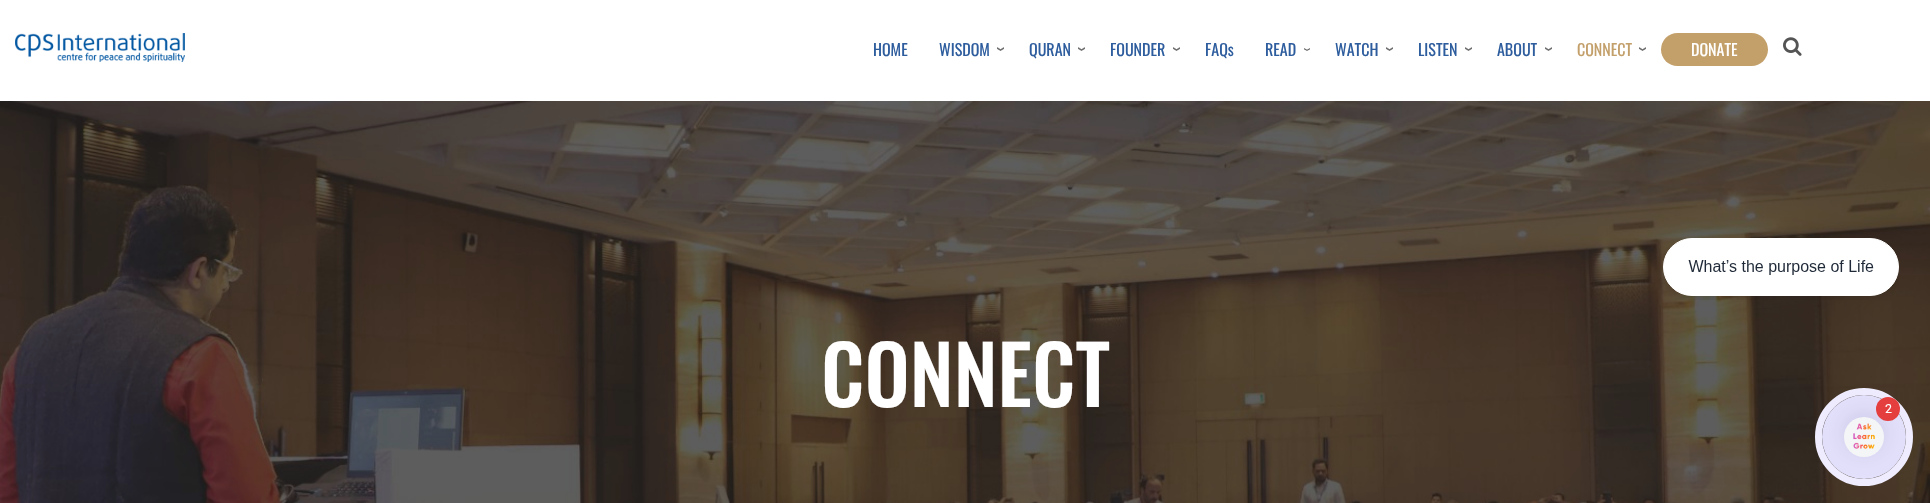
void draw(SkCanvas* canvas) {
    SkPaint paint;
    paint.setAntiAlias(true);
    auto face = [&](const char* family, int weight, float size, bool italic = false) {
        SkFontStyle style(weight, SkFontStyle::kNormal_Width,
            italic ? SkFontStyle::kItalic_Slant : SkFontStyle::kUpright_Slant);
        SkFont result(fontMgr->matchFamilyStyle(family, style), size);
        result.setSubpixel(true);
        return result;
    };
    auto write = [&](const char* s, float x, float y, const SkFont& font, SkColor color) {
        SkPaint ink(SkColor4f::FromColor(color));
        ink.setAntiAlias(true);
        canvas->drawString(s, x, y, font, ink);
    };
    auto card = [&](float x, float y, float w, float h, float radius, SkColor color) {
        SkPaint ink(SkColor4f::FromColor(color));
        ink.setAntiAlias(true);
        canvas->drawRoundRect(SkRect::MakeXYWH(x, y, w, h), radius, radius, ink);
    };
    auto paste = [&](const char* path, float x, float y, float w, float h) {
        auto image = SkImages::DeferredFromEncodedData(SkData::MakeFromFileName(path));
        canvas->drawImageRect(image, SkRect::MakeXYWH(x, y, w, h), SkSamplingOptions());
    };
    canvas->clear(SK_ColorWHITE);
    paste("pic1.png", 15, 33, 170, 29);
    auto kFont1 = face("Oswald", 400, 16);
    write("HOME", 873, 56, kFont1, SkColorSetRGB(46, 93, 158));
    write("WISDOM", 939, 56, kFont1, SkColorSetRGB(46, 93, 158));
    paste("pic2.png", 997, 47, 7, 4);
    write("QURAN", 1029, 56, kFont1, SkColorSetRGB(46, 93, 158));
    paste("pic3.png", 1078, 47, 7, 4);
    write("FOUNDER", 1110, 56, kFont1, SkColorSetRGB(46, 93, 158));
    paste("pic3.png", 1173, 47, 7, 4);
    write("FAQs", 1205, 56, kFont1, SkColorSetRGB(46, 93, 158));
    write("READ", 1265, 56, kFont1, SkColorSetRGB(46, 93, 158));
    paste("pic4.png", 1304, 48, 6, 3);
    write("WATCH", 1335, 56, kFont1, SkColorSetRGB(46, 93, 158));
    paste("pic3.png", 1386, 47, 7, 4);
    write("LISTEN", 1418, 56, kFont1, SkColorSetRGB(46, 93, 158));
    paste("pic3.png", 1465, 47, 7, 4);
    write("ABOUT", 1497, 56, kFont1, SkColorSetRGB(46, 93, 158));
    paste("pic3.png", 1545, 47, 7, 4);
    write("CONNECT", 1577, 56, kFont1, SkColorSetRGB(195, 159, 106));
    paste("pic3.png", 1639, 47, 7, 4);
    card(1661, 33, 107, 33, 16.5f, SkColorSetRGB(195, 159, 106));
    write("DONATE", 1691, 56, kFont1, SK_ColorWHITE);
    paste("pic5.png", 1783, 37, 19, 19);
    paste("pic6.png", 0, 101, 1930, 402);
    auto kFont2 = face("Oswald", 500, 80.5f);
    write("CONNECT", 821, 407, kFont2, SK_ColorWHITE);
    paste("pic7.png", 1663, 238, 236, 62);
    paint.setStyle(SkPaint::kStroke_Style);
    paint.setStrokeWidth(7);
    paint.setColor(SkColorSetRGB(238, 236, 254));
    canvas->drawCircle(1864, 437, 45.5f, paint);
    paint.setStyle(SkPaint::kFill_Style);
    paint.setColor(SkColorSetRGB(226, 224, 251));
    canvas->drawCircle(1864, 437, 42, paint);
    paint.setColor(SkColorSetARGB(26, 5, 1, 45));
    paint.setMaskFilter(SkMaskFilter::MakeBlur(kNormal_SkBlurStyle, 10));
    canvas->drawRoundRect(SkRect::MakeXYWH(1844, 413, 40, 40), 20, 20, paint);
    paint.setMaskFilter(nullptr);
    paste("pic8.png", 1844, 417, 40, 40);
    paint.setColor(SkColorSetRGB(229, 62, 62));
    canvas->drawCircle(1888, 409, 12, paint);
    auto kFont3 = face("Roboto", 700, 12);
    write("2", 1885, 413, kFont3, SK_ColorWHITE);
}
